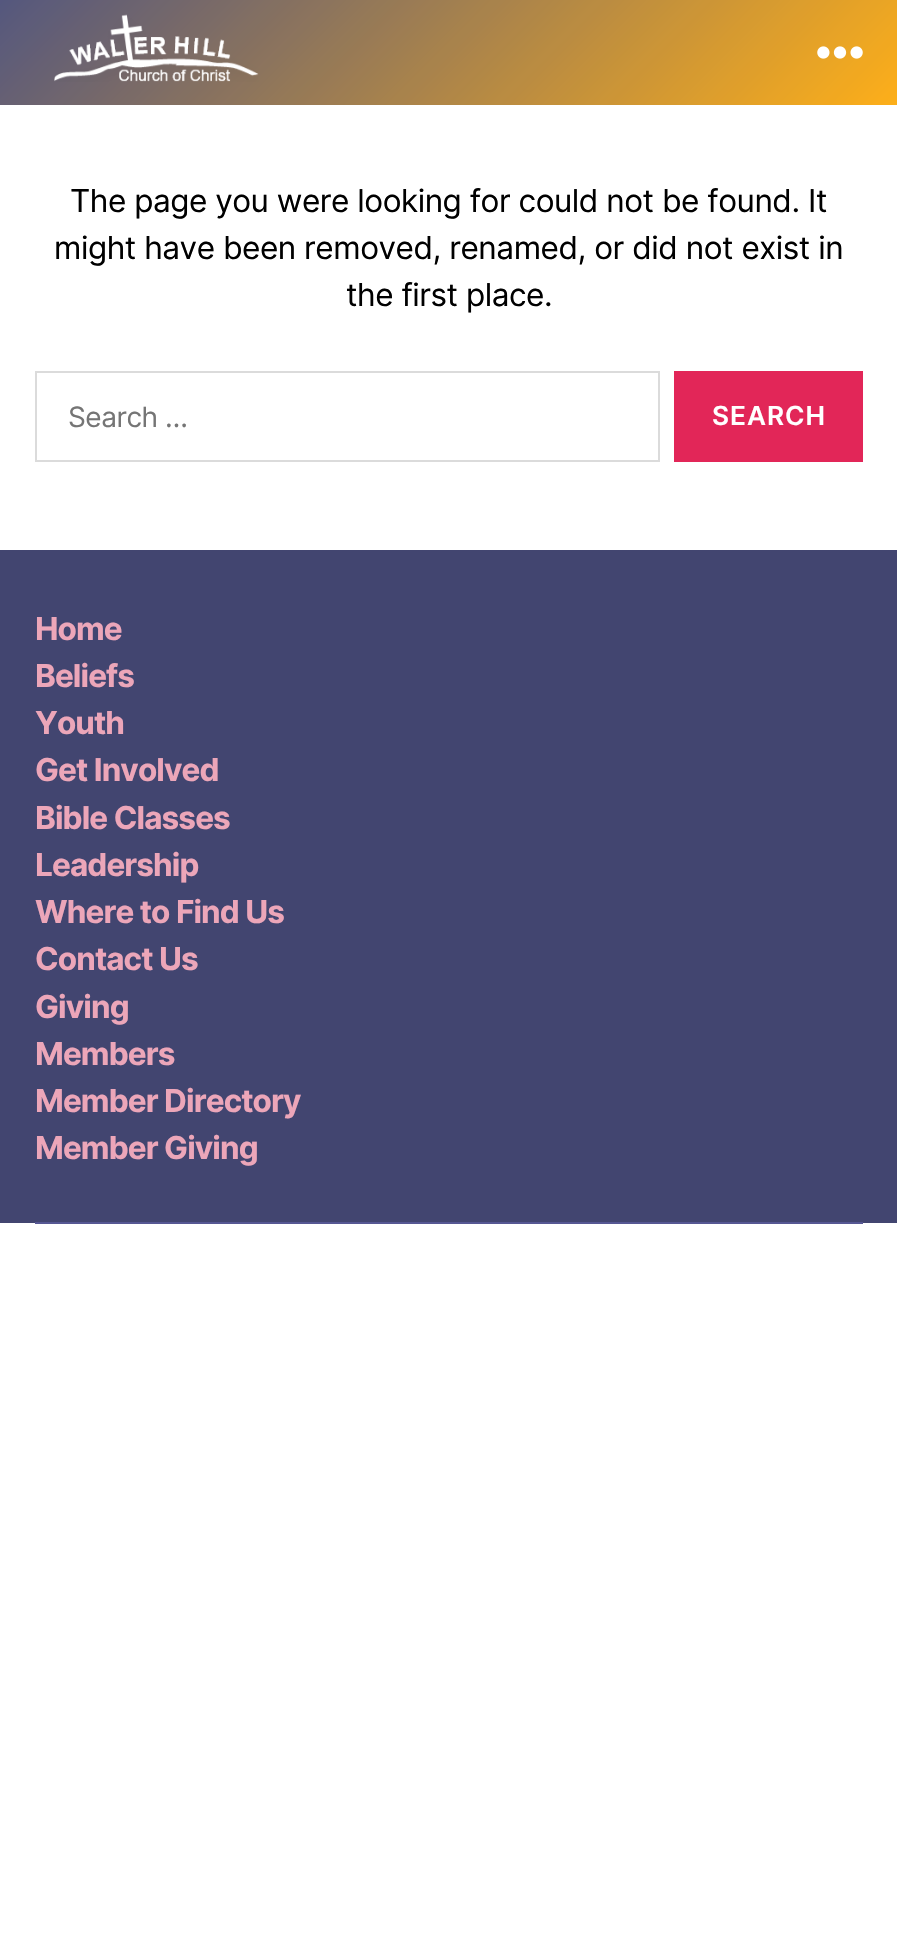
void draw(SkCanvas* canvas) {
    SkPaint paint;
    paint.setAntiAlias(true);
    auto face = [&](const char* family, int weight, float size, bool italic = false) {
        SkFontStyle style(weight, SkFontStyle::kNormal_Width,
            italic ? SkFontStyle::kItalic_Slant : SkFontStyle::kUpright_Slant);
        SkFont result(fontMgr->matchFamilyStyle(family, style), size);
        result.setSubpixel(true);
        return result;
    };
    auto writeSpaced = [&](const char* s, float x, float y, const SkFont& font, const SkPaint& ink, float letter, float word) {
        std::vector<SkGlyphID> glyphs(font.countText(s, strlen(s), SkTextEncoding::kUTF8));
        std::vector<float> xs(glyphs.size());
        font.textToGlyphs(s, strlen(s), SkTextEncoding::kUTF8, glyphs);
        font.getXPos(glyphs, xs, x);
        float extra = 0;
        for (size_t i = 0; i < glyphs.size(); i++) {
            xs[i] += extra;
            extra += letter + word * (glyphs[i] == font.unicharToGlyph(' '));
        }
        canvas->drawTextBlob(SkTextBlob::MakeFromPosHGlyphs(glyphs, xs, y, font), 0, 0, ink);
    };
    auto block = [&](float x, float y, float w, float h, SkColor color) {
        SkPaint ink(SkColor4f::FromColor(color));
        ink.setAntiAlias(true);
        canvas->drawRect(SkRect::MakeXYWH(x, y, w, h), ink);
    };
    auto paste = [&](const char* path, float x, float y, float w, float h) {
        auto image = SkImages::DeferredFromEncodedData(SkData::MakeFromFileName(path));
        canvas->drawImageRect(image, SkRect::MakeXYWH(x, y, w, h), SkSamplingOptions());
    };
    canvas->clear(SK_ColorWHITE);
    {
        const SkColor colors[] = {SkColorSetARGB(230, 66, 69, 112), SkColorSetARGB(230, 253, 166, 0)};
        const float stops[] = {0, 1};
        const SkPoint ends[] = {{198, -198}, {700, 303}};
        paint.setShader(SkGradientShader::MakeLinear(ends, colors, stops, 2, SkTileMode::kClamp));
        paint.setAlpha(255);
    }
    canvas->drawRect(SkRect::MakeXYWH(0, 0, 897, 105), paint);
    paste("pic1.png", 54, 14, 205, 68);
    paste("pic2.png", 817, 46, 46, 13);
    auto kFont1 = face("Inter", 400, 31.5f);
    paint.setShader(nullptr);
    paint.setColor(SK_ColorBLACK);
    writeSpaced("The page you were looking for could not be found. It", 70, 212, kFont1, paint, -0.47f, 0);
    writeSpaced("might have been removed, renamed, or did not exist in", 54, 259, kFont1, paint, -0.47f, 0);
    writeSpaced("the first place.", 346, 306, kFont1, paint, -0.47f, 0);
    paint.setStyle(SkPaint::kStroke_Style);
    paint.setStrokeWidth(2);
    paint.setColor(SkColorSetRGB(219, 219, 219));
    canvas->drawRect(SkRect::MakeXYWH(36, 372, 623, 89), paint);
    auto kFont2 = face("Inter", 400, 28);
    paint.setStyle(SkPaint::kFill_Style);
    paint.setColor(SkColorSetRGB(117, 117, 117));
    writeSpaced("Search …", 68, 427, kFont2, paint, -0.5f, 0);
    block(674, 371, 189, 91, SkColorSetRGB(226, 38, 88));
    auto kFont3 = face("Inter", 600, 26.25f);
    paint.setColor(SK_ColorWHITE);
    writeSpaced("SEARCH", 712, 425, kFont3, paint, 1, 0);
    block(0, 550, 897, 673, SkColorSetRGB(66, 69, 112));
    block(35, 1222, 828, 2, SkColorSetRGB(86, 87, 147));
    auto kFont4 = face("Inter", 700, 31.5f);
    paint.setColor(SkColorSetRGB(236, 166, 185));
    writeSpaced("Home", 35, 640, kFont4, paint, -0.9f, 0);
    writeSpaced("Beliefs", 35, 687, kFont4, paint, -0.9f, 0);
    writeSpaced("Youth", 35, 734, kFont4, paint, -0.9f, 0);
    writeSpaced("Get Involved", 35, 781, kFont4, paint, -0.9f, 0);
    writeSpaced("Bible Classes", 35, 829, kFont4, paint, -0.9f, 0);
    writeSpaced("Leadership", 35, 876, kFont4, paint, -0.9f, 0);
    writeSpaced("Where to Find Us", 35, 923, kFont4, paint, -0.9f, 0);
    writeSpaced("Contact Us", 35, 970, kFont4, paint, -0.9f, 0);
    writeSpaced("Giving", 35, 1018, kFont4, paint, -0.9f, 0);
    writeSpaced("Members", 35, 1065, kFont4, paint, -0.9f, 0);
    writeSpaced("Member Directory", 35, 1112, kFont4, paint, -0.9f, 0);
    writeSpaced("Member Giving", 35, 1159, kFont4, paint, -0.9f, 0);
}
